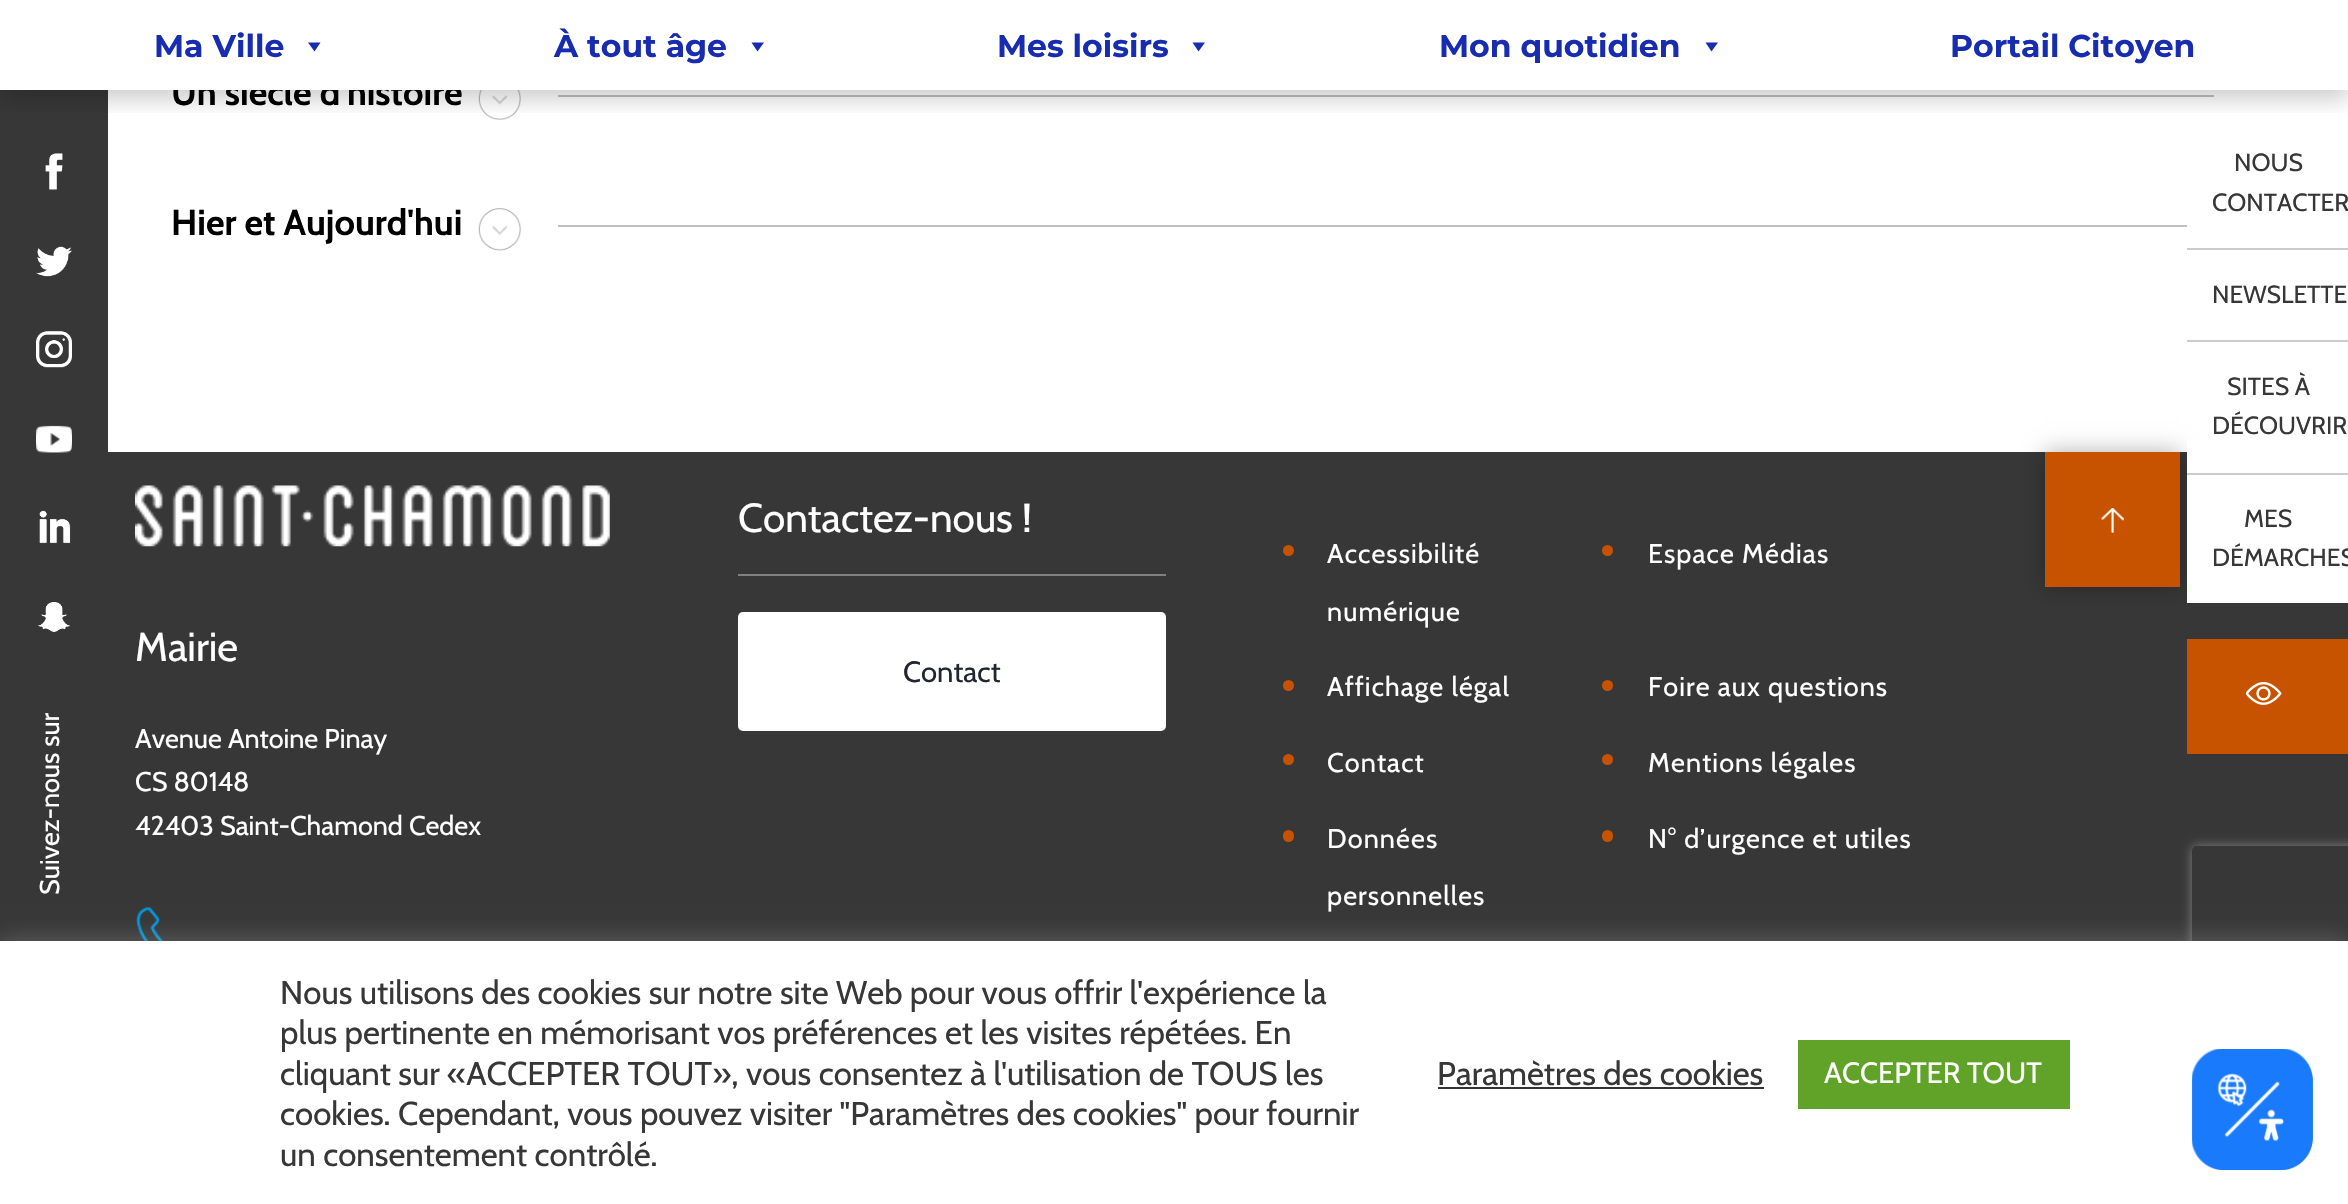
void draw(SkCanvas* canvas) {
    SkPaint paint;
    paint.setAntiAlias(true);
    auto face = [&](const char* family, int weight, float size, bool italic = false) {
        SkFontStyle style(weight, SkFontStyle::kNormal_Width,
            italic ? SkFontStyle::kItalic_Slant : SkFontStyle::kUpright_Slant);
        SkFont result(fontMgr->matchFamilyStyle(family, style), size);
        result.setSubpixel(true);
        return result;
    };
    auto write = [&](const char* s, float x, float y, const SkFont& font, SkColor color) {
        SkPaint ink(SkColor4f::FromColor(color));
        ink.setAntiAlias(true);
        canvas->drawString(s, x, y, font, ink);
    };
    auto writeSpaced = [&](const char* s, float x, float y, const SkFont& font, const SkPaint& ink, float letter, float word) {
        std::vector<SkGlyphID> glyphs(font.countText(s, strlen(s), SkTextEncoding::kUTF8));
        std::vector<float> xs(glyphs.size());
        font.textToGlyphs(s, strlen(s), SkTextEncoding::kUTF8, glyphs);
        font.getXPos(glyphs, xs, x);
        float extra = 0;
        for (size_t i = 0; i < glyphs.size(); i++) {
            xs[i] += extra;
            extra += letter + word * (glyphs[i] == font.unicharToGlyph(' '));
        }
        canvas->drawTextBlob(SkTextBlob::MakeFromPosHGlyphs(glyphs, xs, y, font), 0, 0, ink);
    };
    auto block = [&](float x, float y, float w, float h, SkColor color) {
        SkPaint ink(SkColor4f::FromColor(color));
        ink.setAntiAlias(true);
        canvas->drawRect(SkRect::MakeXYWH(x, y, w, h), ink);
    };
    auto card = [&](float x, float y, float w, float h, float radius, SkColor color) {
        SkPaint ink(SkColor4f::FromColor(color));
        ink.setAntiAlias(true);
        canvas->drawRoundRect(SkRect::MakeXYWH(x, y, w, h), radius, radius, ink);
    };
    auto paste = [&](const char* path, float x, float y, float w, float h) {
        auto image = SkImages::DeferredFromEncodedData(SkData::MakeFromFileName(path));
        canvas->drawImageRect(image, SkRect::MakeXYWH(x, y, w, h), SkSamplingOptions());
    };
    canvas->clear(SK_ColorWHITE);
    auto kFont1 = face("Cabin", 700, 36);
    write("Un siècle d'histoire", 171, 105, kFont1, SK_ColorBLACK);
    block(173, 77, 288, 13, SK_ColorWHITE);
    block(0, 90, 108, 851, SkColorSetRGB(55, 55, 55));
    block(558, 95, 1656, 2, SkColorSetRGB(192, 192, 192));
    paste("pic8.png", 478, 90, 43, 30);
    canvas->save();
    canvas->clipRect(SkRect::MakeXYWH(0, 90, 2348, 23));
    paint.setColor(SkColorSetARGB(51, 0, 0, 0));
    paint.setMaskFilter(SkMaskFilter::MakeBlur(kNormal_SkBlurStyle, 11));
    canvas->drawRect(SkRect::MakeXYWH(0, 7, 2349, 92), paint);
    paint.setMaskFilter(nullptr);
    canvas->restore();
    auto kFont2 = face("Montserrat", 700, 31.5f);
    write("Ma Ville", 154, 57, kFont2, SkColorSetRGB(24, 44, 176));
    paint.setColor(SkColorSetRGB(24, 44, 176));
    canvas->drawPath(SkPathBuilder().moveTo(320.5f, 42.5f).lineTo(314.5f, 51.5f).lineTo(308, 42.5f).close().detach(), paint);
    write("À tout âge", 554, 57, kFont2, SkColorSetRGB(24, 44, 176));
    canvas->drawPath(SkPathBuilder().moveTo(764, 42.5f).lineTo(757.5f, 51.5f).lineTo(751.5f, 42.5f).close().detach(), paint);
    write("Mes loisirs", 997, 57, kFont2, SkColorSetRGB(24, 44, 176));
    canvas->drawPath(SkPathBuilder().moveTo(1205, 42.5f).lineTo(1198.5f, 51.5f).lineTo(1192.5f, 42.5f).close().detach(), paint);
    write("Mon quotidien", 1439, 57, kFont2, SkColorSetRGB(24, 44, 176));
    canvas->drawPath(SkPathBuilder().moveTo(1718, 42.5f).lineTo(1711.5f, 51.5f).lineTo(1705.5f, 42.5f).close().detach(), paint);
    write("Portail Citoyen", 1950, 57, kFont2, SkColorSetRGB(24, 44, 176));
    block(2187, 248, 161, 2, SkColorSetRGB(204, 204, 204));
    auto kFont3 = face("Cabin", 400, 24.75f);
    write("NOUS", 2234, 171, kFont3, SkColorSetRGB(55, 55, 55));
    write("CONTACTER", 2212, 211, kFont3, SkColorSetRGB(55, 55, 55));
    block(2187, 340, 161, 2, SkColorSetRGB(204, 204, 204));
    write("NEWSLETTE", 2212, 303, kFont3, SkColorSetRGB(55, 55, 55));
    block(108, 452, 2240, 489, SkColorSetRGB(55, 55, 55));
    paint.setColor(SkColorSetARGB(77, 0, 0, 0));
    paint.setMaskFilter(SkMaskFilter::MakeBlur(kNormal_SkBlurStyle, 11));
    canvas->drawRect(SkRect::MakeXYWH(2045, 452, 135, 135), paint);
    paint.setMaskFilter(nullptr);
    block(2187, 440, 161, 33, SK_ColorWHITE);
    block(2187, 473, 161, 2, SkColorSetRGB(204, 204, 204));
    write("SITES À", 2227, 395, kFont3, SkColorSetRGB(55, 55, 55));
    write("DÉCOUVRIR", 2212, 434, kFont3, SkColorSetRGB(55, 55, 55));
    block(2187, 475, 161, 128, SK_ColorWHITE);
    write("MES", 2244, 527, kFont3, SkColorSetRGB(55, 55, 55));
    write("DÉMARCHES", 2212, 566, kFont3, SkColorSetRGB(55, 55, 55));
    block(2187, 639, 161, 115, SkColorSetRGB(199, 83, 0));
    paste("pic1.png", 2246, 682, 36, 23);
    paste("pic2.png", 45, 153, 18, 37);
    paste("pic3.png", 36, 246, 36, 31);
    paste("pic4.png", 36, 331, 36, 37);
    paste("pic5.png", 36, 425, 36, 28);
    paste("pic6.png", 39, 510, 32, 34);
    paste("pic7.png", 38, 602, 32, 30);
    auto kFont4 = face("Cabin", 400, 27);
    canvas->save();
    canvas->rotate(-90, 59, 895);
    write("Suivez-nous sur", 59, 895, kFont4, SK_ColorWHITE);
    canvas->restore();
    block(558, 225, 1629, 2, SkColorSetRGB(192, 192, 192));
    write("Hier et Aujourd'hui", 171, 235, kFont1, SK_ColorBLACK);
    paste("pic9.png", 478, 208, 44, 43);
    paste("pic10.png", 135, 485, 475, 62);
    auto kFont5 = face("Cabin", 400, 40.5f);
    write("Mairie", 135, 661, kFont5, SK_ColorWHITE);
    write("Avenue Antoine Pinay", 135, 748, kFont4, SK_ColorWHITE);
    write("CS 80148", 135, 791, kFont4, SK_ColorWHITE);
    write("42403 Saint-Chamond Cedex", 135, 835, kFont4, SK_ColorWHITE);
    paste("pic11.png", 136, 907, 28, 34);
    block(738, 574, 428, 2, SkColorSetRGB(128, 128, 128));
    write("Contactez-nous !", 738, 532, kFont5, SK_ColorWHITE);
    card(738, 612, 428, 119, 5, SK_ColorWHITE);
    auto kFont6 = face("Cabin", 400, 29.25f);
    write("Contact", 903, 682, kFont6, SkColorSetRGB(34, 38, 49));
    paint.setColor(SkColorSetRGB(199, 83, 0));
    canvas->drawCircle(1288.5f, 550.5f, 5.5f, paint);
    paint.setColor(SK_ColorWHITE);
    writeSpaced("Accessibilité", 1327, 563, kFont4, paint, 1.1f, 0);
    writeSpaced("numérique", 1327, 621, kFont4, paint, 1.1f, 0);
    paint.setColor(SkColorSetRGB(199, 83, 0));
    canvas->drawCircle(1607.5f, 550.5f, 5.5f, paint);
    paint.setColor(SK_ColorWHITE);
    writeSpaced("Espace Médias", 1648, 563, kFont4, paint, 1.1f, 0);
    paint.setColor(SkColorSetRGB(199, 83, 0));
    canvas->drawCircle(1288.5f, 685.5f, 5.5f, paint);
    paint.setColor(SK_ColorWHITE);
    writeSpaced("Affichage légal", 1327, 696, kFont4, paint, 1.1f, 0);
    paint.setColor(SkColorSetRGB(199, 83, 0));
    canvas->drawCircle(1607.5f, 685.5f, 5.5f, paint);
    paint.setColor(SK_ColorWHITE);
    writeSpaced("Foire aux questions", 1648, 696, kFont4, paint, 1.1f, 0);
    paint.setColor(SkColorSetRGB(199, 83, 0));
    canvas->drawCircle(1288.5f, 759.5f, 5.5f, paint);
    paint.setColor(SK_ColorWHITE);
    writeSpaced("Contact", 1327, 772, kFont4, paint, 1.1f, 0);
    paint.setColor(SkColorSetRGB(199, 83, 0));
    canvas->drawCircle(1607.5f, 759.5f, 5.5f, paint);
    paint.setColor(SK_ColorWHITE);
    writeSpaced("Mentions légales", 1648, 772, kFont4, paint, 1.1f, 0);
    card(1283, 830, 11, 12, 5.5f, SkColorSetRGB(199, 83, 0));
    writeSpaced("Données", 1327, 848, kFont4, paint, 1.1f, 0);
    writeSpaced("personnelles", 1327, 905, kFont4, paint, 1.1f, 0);
    card(1602, 830, 11, 12, 5.5f, SkColorSetRGB(199, 83, 0));
    writeSpaced("N° d’urgence et utiles", 1648, 848, kFont4, paint, 1.1f, 0);
    block(2045, 452, 135, 135, SkColorSetRGB(199, 83, 0));
    paste("pic12.png", 2101, 508, 23, 25);
    canvas->save();
    canvas->clipPath(SkPathBuilder(SkPathFillType::kEvenOdd).moveTo(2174, 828).lineTo(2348, 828).lineTo(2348, 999).lineTo(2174, 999).close().moveTo(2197, 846).lineTo(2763, 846).cubicTo(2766, 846, 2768, 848, 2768, 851).lineTo(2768, 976).cubicTo(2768, 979, 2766, 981, 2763, 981).lineTo(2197, 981).cubicTo(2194, 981, 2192, 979, 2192, 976).lineTo(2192, 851).cubicTo(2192, 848, 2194, 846, 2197, 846).close().detach(), true);
    paint.setColor(SkColorSetRGB(128, 128, 128));
    paint.setMaskFilter(SkMaskFilter::MakeBlur(kNormal_SkBlurStyle, 5.5f));
    canvas->drawRoundRect(SkRect::MakeXYWH(2192, 846, 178, 135), 5, 5, paint);
    paint.setMaskFilter(nullptr);
    canvas->restore();
    paint.setColor(SkColorSetARGB(77, 172, 171, 171));
    paint.setMaskFilter(SkMaskFilter::MakeBlur(kNormal_SkBlurStyle, 11));
    canvas->drawRect(SkRect::MakeXYWH(0, 938, 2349, 266), paint);
    paint.setMaskFilter(nullptr);
    block(0, 941, 2348, 263, SK_ColorWHITE);
    auto kFont7 = face("Cabin", 400, 33);
    write("Nous utilisons des cookies sur notre site Web pour vous offrir l'expérience la", 280, 1004, kFont7, SkColorSetRGB(55, 55, 55));
    write("plus pertinente en mémorisant vos préférences et les visites répétées. En", 280, 1044, kFont7, SkColorSetRGB(55, 55, 55));
    write("cliquant sur «ACCEPTER TOUT», vous consentez à l'utilisation de TOUS les", 280, 1085, kFont7, SkColorSetRGB(55, 55, 55));
    write("cookies. Cependant, vous pouvez visiter \"Paramètres des cookies\" pour fournir", 280, 1125, kFont7, SkColorSetRGB(55, 55, 55));
    write("un consentement contrôlé.", 280, 1166, kFont7, SkColorSetRGB(55, 55, 55));
    write("Paramètres des cookies", 1437, 1085, kFont7, SkColorSetRGB(55, 55, 55));
    block(1438, 1087, 326, 2, SkColorSetRGB(51, 51, 51));
    block(1798, 1040, 272, 69, SkColorSetRGB(97, 162, 41));
    write("ACCEPTER TOUT", 1824, 1083, kFont6, SK_ColorWHITE);
    paste("pic13.png", 2192, 1049, 121, 121);
}
